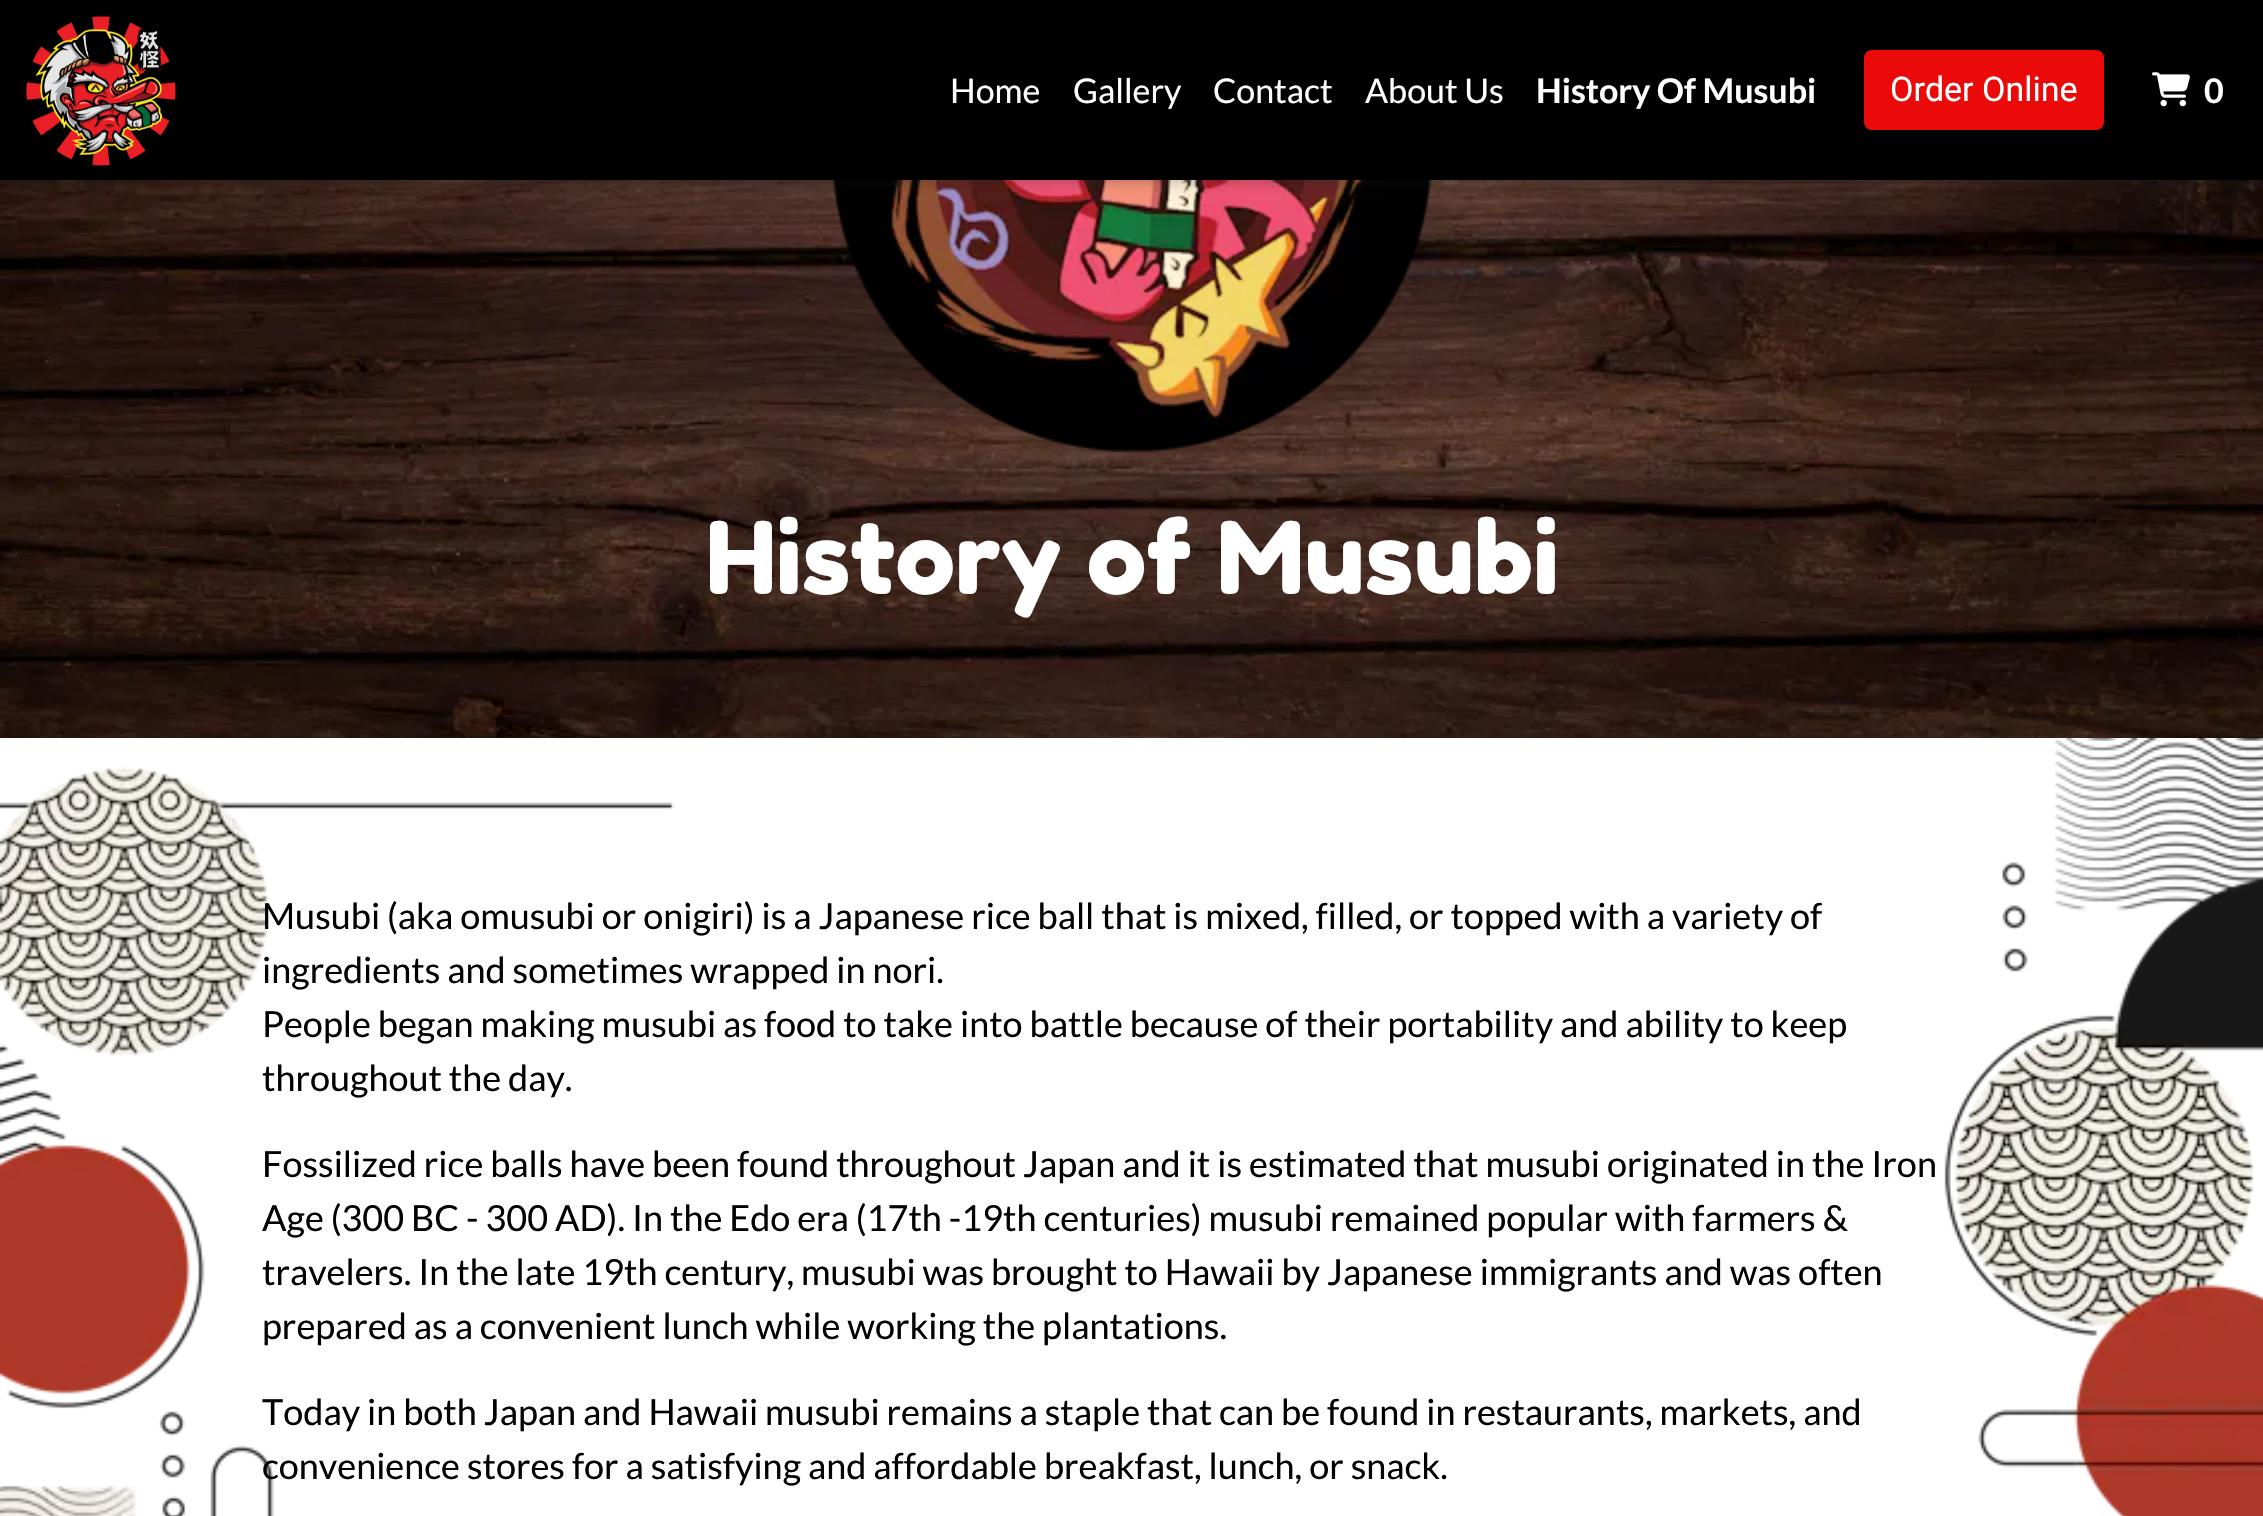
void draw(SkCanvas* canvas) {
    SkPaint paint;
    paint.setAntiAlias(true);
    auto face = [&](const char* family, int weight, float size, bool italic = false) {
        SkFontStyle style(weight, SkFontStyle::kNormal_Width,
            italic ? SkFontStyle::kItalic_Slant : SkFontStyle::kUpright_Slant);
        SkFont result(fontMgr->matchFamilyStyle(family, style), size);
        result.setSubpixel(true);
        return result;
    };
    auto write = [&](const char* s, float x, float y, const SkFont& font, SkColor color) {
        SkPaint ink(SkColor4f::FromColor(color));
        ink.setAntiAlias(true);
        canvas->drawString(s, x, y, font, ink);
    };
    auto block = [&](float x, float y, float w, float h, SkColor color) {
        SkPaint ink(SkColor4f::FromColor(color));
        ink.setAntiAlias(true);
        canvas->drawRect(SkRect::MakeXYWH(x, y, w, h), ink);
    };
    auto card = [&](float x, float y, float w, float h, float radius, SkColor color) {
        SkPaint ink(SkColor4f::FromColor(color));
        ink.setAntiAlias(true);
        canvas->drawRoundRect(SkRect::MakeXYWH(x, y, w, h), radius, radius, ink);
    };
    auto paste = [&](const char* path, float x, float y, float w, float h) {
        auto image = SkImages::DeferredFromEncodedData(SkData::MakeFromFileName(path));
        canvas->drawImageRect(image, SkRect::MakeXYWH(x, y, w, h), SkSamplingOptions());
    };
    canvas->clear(SK_ColorWHITE);
    paste("pic3.png", 0, 180, 2263, 558);
    paste("pic4.png", 832, 180, 600, 272);
    paint.setColor(SkColorSetARGB(71, 32, 33, 36));
    paint.setMaskFilter(SkMaskFilter::MakeBlur(kNormal_SkBlurStyle, 6));
    canvas->drawRect(SkRect::MakeXYWH(0, 2, 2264, 180), paint);
    paint.setMaskFilter(nullptr);
    block(0, 0, 2263, 180, SK_ColorBLACK);
    paste("pic1.png", 26, 16, 150, 150);
    auto kFont1 = face("Lato", 400, 34);
    write("Home", 950, 103, kFont1, SK_ColorWHITE);
    write("Gallery", 1073, 103, kFont1, SK_ColorWHITE);
    write("Contact", 1213, 103, kFont1, SK_ColorWHITE);
    write("About Us", 1365, 103, kFont1, SK_ColorWHITE);
    auto kFont2 = face("Lato", 700, 34);
    write("History Of Musubi", 1536, 103, kFont2, SK_ColorWHITE);
    card(1864, 50, 240, 80, 8, SkColorSetRGB(235, 10, 10));
    auto kFont3 = face("Roboto", 400, 34);
    write("Order Online", 1890, 101, kFont3, SK_ColorWHITE);
    paste("pic2.png", 2152, 72, 38, 35);
    write("0", 2204, 103, kFont2, SK_ColorWHITE);
    auto kFont4 = face("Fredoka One", 400, 100);
    write("History of Musubi", 706, 594, kFont4, SK_ColorWHITE);
    paste("pic5.png", 0, 738, 2263, 778);
    auto kFont5 = face("Lato", 400, 36);
    write("Musubi (aka omusubi or onigiri) is a Japanese rice ball that is mixed, filled, or topped with a variety of", 262, 929, kFont5, SK_ColorBLACK);
    write("ingredients and sometimes wrapped in nori.", 262, 983, kFont5, SK_ColorBLACK);
    write("People began making musubi as food to take into battle because of their portability and ability to keep", 262, 1037, kFont5, SK_ColorBLACK);
    write("throughout the day.", 262, 1091, kFont5, SK_ColorBLACK);
    write("Fossilized rice balls have been found throughout Japan and it is estimated that musubi originated in the Iron", 262, 1177, kFont5, SK_ColorBLACK);
    write("Age (300 BC - 300 AD). In the Edo era (17th -19th centuries) musubi remained popular with farmers &", 262, 1231, kFont5, SK_ColorBLACK);
    write("travelers. In the late 19th century, musubi was brought to Hawaii by Japanese immigrants and was often", 262, 1285, kFont5, SK_ColorBLACK);
    write("prepared as a convenient lunch while working the plantations.", 262, 1339, kFont5, SK_ColorBLACK);
    write("Today in both Japan and Hawaii musubi remains a staple that can be found in restaurants, markets, and", 262, 1425, kFont5, SK_ColorBLACK);
    write("convenience stores for a satisfying and affordable breakfast, lunch, or snack.", 262, 1479, kFont5, SK_ColorBLACK);
}
